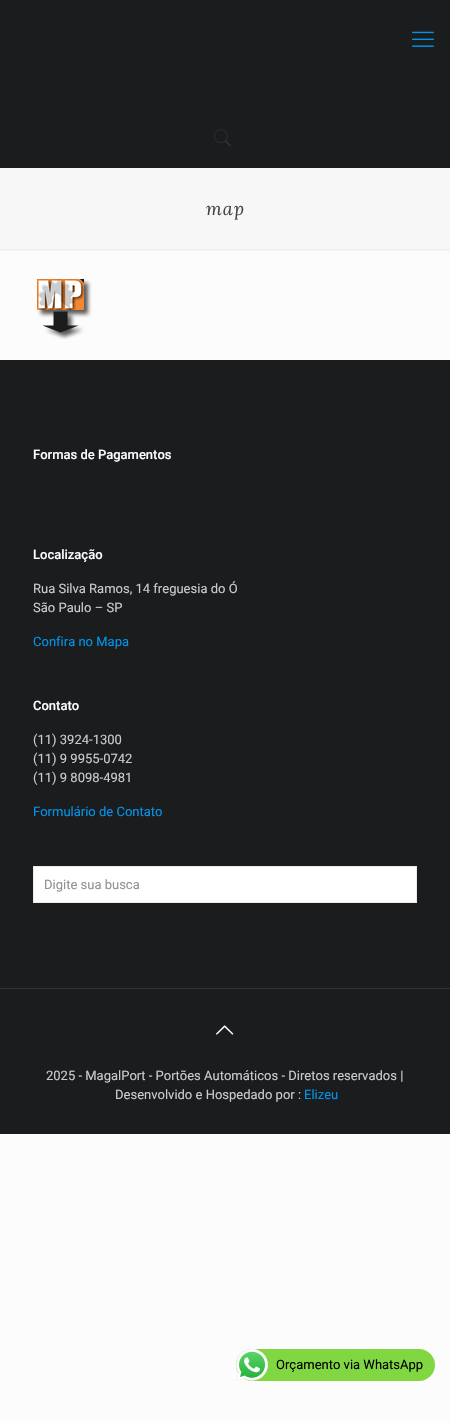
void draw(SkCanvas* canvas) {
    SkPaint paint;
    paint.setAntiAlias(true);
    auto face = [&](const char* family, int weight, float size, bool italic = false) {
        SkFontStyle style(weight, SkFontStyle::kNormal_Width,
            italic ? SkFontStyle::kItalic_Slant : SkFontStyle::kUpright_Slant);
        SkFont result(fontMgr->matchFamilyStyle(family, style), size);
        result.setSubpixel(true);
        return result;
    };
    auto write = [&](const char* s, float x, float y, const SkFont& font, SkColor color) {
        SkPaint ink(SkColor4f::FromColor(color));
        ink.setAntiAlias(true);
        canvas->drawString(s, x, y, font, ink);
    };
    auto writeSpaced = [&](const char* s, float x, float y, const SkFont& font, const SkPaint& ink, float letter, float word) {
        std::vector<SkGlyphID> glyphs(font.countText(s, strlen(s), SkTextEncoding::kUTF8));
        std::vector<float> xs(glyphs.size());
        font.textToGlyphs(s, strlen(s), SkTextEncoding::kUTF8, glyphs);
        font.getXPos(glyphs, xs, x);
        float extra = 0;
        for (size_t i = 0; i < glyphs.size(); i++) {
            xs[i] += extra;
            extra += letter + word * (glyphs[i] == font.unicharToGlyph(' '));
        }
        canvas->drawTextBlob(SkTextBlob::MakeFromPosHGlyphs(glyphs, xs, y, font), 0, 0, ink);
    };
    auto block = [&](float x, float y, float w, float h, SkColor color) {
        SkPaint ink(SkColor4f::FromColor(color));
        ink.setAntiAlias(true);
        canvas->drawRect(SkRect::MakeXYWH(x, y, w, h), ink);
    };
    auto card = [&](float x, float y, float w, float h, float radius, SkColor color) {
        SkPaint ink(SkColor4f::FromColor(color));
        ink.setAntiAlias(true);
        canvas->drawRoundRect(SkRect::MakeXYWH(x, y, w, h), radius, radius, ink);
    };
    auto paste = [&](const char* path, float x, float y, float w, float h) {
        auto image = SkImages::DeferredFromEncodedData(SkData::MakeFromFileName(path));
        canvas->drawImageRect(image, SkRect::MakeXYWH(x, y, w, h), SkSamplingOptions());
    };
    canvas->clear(SkColorSetRGB(252, 252, 252));
    block(0, 0, 450, 168, SkColorSetRGB(27, 28, 30));
    paste("pic1.png", 412, 31, 22, 16);
    paste("pic2.png", 214, 129, 17, 18);
    block(0, 168, 450, 81, SkColorSetRGB(247, 247, 247));
    auto kFont1 = face("Lora", 400, 18, true);
    paint.setColor(SkColorSetRGB(68, 68, 68));
    writeSpaced("map", 206, 215, kFont1, paint, 1, 0);
    paste("pic3.png", 0, 249, 450, 2);
    paste("pic4.png", 37, 279, 55, 61);
    block(0, 360, 450, 774, SkColorSetRGB(27, 28, 30));
    auto kFont2 = face("Roboto", 500, 13);
    write("Formas de Pagamentos", 33, 459, kFont2, SK_ColorWHITE);
    write("Localização", 33, 559, kFont2, SK_ColorWHITE);
    auto kFont3 = face("Roboto", 400, 13);
    write("Rua Silva Ramos, 14 freguesia do Ó", 33, 593, kFont3, SkColorSetRGB(204, 204, 204));
    write("São Paulo – SP", 33, 612, kFont3, SkColorSetRGB(204, 204, 204));
    write("Confira no Mapa", 33, 646, kFont3, SkColorSetRGB(0, 149, 235));
    write("Contato", 33, 710, kFont2, SK_ColorWHITE);
    write("(11) 3924-1300", 33, 744, kFont3, SkColorSetRGB(204, 204, 204));
    write("(11) 9 9955-0742", 33, 763, kFont3, SkColorSetRGB(204, 204, 204));
    write("(11) 9 8098-4981", 33, 782, kFont3, SkColorSetRGB(204, 204, 204));
    write("Formulário de Contato", 33, 816, kFont3, SkColorSetRGB(0, 149, 235));
    paint.setColor(SK_ColorWHITE);
    canvas->drawRect(SkRect::MakeXYWH(33.5f, 866.5f, 383, 36), paint);
    paint.setStyle(SkPaint::kStroke_Style);
    paint.setStrokeWidth(1);
    paint.setColor(SkColorSetRGB(235, 235, 235));
    canvas->drawRect(SkRect::MakeXYWH(33.5f, 866.5f, 383, 36), paint);
    write("Digite sua busca", 44, 889, kFont3, SkColorSetRGB(146, 146, 146));
    block(0, 988, 450, 1, SkColorSetRGB(50, 51, 53));
    paste("pic5.png", 216, 1025, 18, 10);
    write("2025 - MagalPort - Portões Automáticos - Diretos reservados |", 46, 1080, kFont3, SkColorSetRGB(204, 204, 204));
    write("Desenvolvido e Hospedado por :", 115, 1099, kFont3, SkColorSetRGB(204, 204, 204));
    write("Elizeu", 304, 1099, kFont3, SkColorSetRGB(0, 149, 235));
    card(236, 1349, 199, 32, 16, SkColorSetRGB(129, 215, 66));
    paste("pic6.png", 236, 1349, 32, 32);
    write("Orçamento via WhatsApp", 276, 1369, kFont3, SK_ColorBLACK);
}
